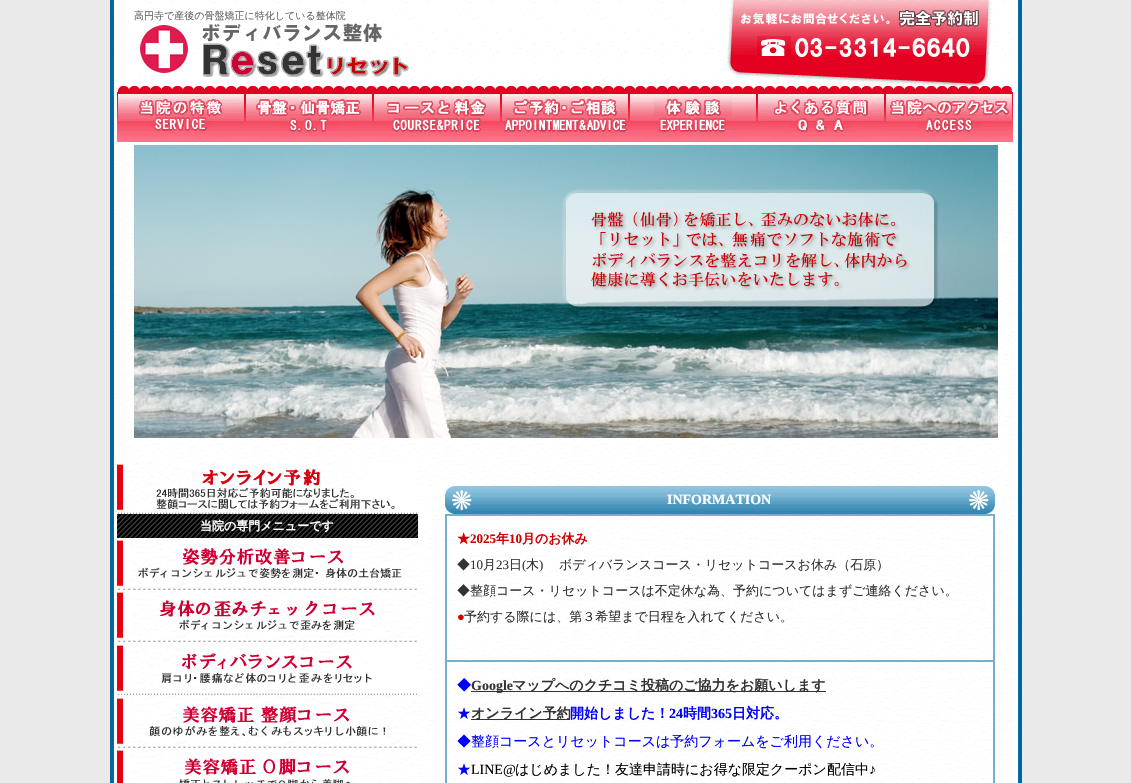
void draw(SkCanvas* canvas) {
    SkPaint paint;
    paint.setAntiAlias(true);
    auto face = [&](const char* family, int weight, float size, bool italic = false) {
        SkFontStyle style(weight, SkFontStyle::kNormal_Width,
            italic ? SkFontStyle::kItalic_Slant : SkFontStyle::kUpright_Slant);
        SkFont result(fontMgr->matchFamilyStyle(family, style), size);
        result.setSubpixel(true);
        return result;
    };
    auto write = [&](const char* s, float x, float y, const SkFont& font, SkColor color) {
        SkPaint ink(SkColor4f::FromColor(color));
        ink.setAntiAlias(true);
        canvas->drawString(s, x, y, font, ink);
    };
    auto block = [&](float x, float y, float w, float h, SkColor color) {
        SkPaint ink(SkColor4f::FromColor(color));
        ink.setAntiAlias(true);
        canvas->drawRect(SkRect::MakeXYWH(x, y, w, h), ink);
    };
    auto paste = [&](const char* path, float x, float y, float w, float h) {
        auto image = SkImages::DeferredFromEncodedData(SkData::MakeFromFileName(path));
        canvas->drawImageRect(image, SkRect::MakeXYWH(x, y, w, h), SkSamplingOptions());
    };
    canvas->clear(SkColorSetRGB(234, 234, 234));
    paste("pic1.png", 110, 0, 912, 783);
    paste("pic2.png", 114, 0, 904, 92);
    auto kFont1 = face("WenQuanYi Zen Hei", 500, 10);
    write("高円寺で産後の骨盤矯正に特化している整体院", 134, 19, kFont1, SkColorSetRGB(102, 102, 102));
    paste("pic3.png", 140, 23, 270, 54);
    paste("pic4.png", 117, 92, 128, 50);
    paste("pic5.png", 245, 92, 128, 50);
    paste("pic6.png", 373, 92, 128, 50);
    paste("pic7.png", 501, 92, 128, 50);
    paste("pic8.png", 629, 92, 128, 50);
    paste("pic9.png", 757, 92, 128, 50);
    paste("pic10.png", 885, 92, 128, 50);
    paste("pic11.png", 134, 145, 864, 293);
    paste("pic12.png", 117, 462, 300, 52);
    paste("pic13.png", 117, 514, 301, 24);
    auto kFont2 = face("WenQuanYi Zen Hei", 700, 12);
    write("当院の専門メニューです", 200, 530, kFont2, SK_ColorWHITE);
    paste("pic14.png", 117, 538, 300, 52);
    paste("pic15.png", 117, 590, 300, 52);
    paste("pic16.png", 117, 643, 300, 52);
    paste("pic17.png", 117, 696, 300, 52);
    paste("pic18.png", 117, 748, 298, 35);
    paste("pic19.png", 445, 486, 550, 28);
    auto kFont3 = face("Liberation Serif", 700, 14);
    write("INFORMATION", 667, 504, kFont3, SK_ColorWHITE);
    paint.setStyle(SkPaint::kStroke_Style);
    paint.setStrokeWidth(1);
    paint.setColor(SkColorSetRGB(118, 174, 205));
    canvas->drawRect(SkRect::MakeXYWH(445.5f, 514.5f, 549, 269), paint);
    canvas->drawRect(SkRect::MakeXYWH(446.5f, 515.5f, 547, 145), paint);
    auto kFont4 = face("WenQuanYi Zen Hei", 700, 13);
    write("★", 457, 543, kFont4, SkColorSetRGB(204, 0, 0));
    auto kFont5 = face("Liberation Serif", 700, 13);
    write("2025", 470, 543, kFont5, SkColorSetRGB(204, 0, 0));
    write("年", 496, 543, kFont4, SkColorSetRGB(204, 0, 0));
    write("10", 509, 543, kFont5, SkColorSetRGB(204, 0, 0));
    write("月のお休み", 522, 543, kFont4, SkColorSetRGB(204, 0, 0));
    auto kFont6 = face("WenQuanYi Zen Hei", 500, 13);
    write("◆", 457, 569, kFont6, SkColorSetRGB(51, 51, 51));
    auto kFont7 = face("Liberation Serif", 400, 13);
    write("10", 470, 569, kFont7, SkColorSetRGB(51, 51, 51));
    write("月", 483, 569, kFont6, SkColorSetRGB(51, 51, 51));
    write("23", 496, 569, kFont7, SkColorSetRGB(51, 51, 51));
    write("日", 509, 569, kFont6, SkColorSetRGB(51, 51, 51));
    write("(", 522, 569, kFont7, SkColorSetRGB(51, 51, 51));
    write("木", 526, 569, kFont6, SkColorSetRGB(51, 51, 51));
    write(")", 539, 569, kFont7, SkColorSetRGB(51, 51, 51));
    write("ボディバランスコース・リセットコースお休み（石原）", 559, 569, kFont6, SkColorSetRGB(51, 51, 51));
    write("◆整顔コース・リセットコースは不定休な為、予約についてはまずご連絡ください。", 457, 595, kFont6, SkColorSetRGB(51, 51, 51));
    write("●", 457, 621, kFont7, SkColorSetRGB(204, 0, 0));
    write("予約する際には、第３希望まで日程を入れてください。", 464, 621, kFont6, SkColorSetRGB(51, 51, 51));
    canvas->drawRect(SkRect::MakeXYWH(446.5f, 661.5f, 547, 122), paint);
    auto kFont8 = face("WenQuanYi Zen Hei", 700, 14);
    write("◆", 457, 690, kFont8, SkColorSetRGB(0, 0, 255));
    block(471, 691, 355, 1, SkColorSetRGB(51, 51, 51));
    write("Google", 471, 690, kFont3, SkColorSetRGB(51, 51, 51));
    write("マップへのクチコミ投稿のご協力をお願いします", 512, 690, kFont8, SkColorSetRGB(51, 51, 51));
    auto kFont9 = face("WenQuanYi Zen Hei", 500, 14);
    write("★", 457, 718, kFont9, SkColorSetRGB(0, 0, 255));
    block(471, 719, 99, 1, SkColorSetRGB(51, 51, 51));
    write("オンライン予約", 471, 718, kFont8, SkColorSetRGB(51, 51, 51));
    write("開始しました！", 570, 718, kFont8, SkColorSetRGB(0, 0, 255));
    write("24", 669, 718, kFont3, SkColorSetRGB(0, 0, 255));
    write("時間", 683, 718, kFont8, SkColorSetRGB(0, 0, 255));
    write("365", 711, 718, kFont3, SkColorSetRGB(0, 0, 255));
    write("日対応。", 732, 718, kFont8, SkColorSetRGB(0, 0, 255));
    write("◆整顔コースとリセットコースは予約フォームをご利用ください。", 457, 746, kFont9, SkColorSetRGB(0, 0, 255));
    write("★", 457, 774, kFont9, SkColorSetRGB(0, 0, 255));
    auto kFont10 = face("Liberation Serif", 400, 14);
    write("LINE@", 471, 774, kFont10, SK_ColorBLACK);
    write("はじめました！友達申請時にお得な限定クーポン配信中", 515, 774, kFont9, SK_ColorBLACK);
    write("♪", 869, 774, kFont10, SK_ColorBLACK);
}
